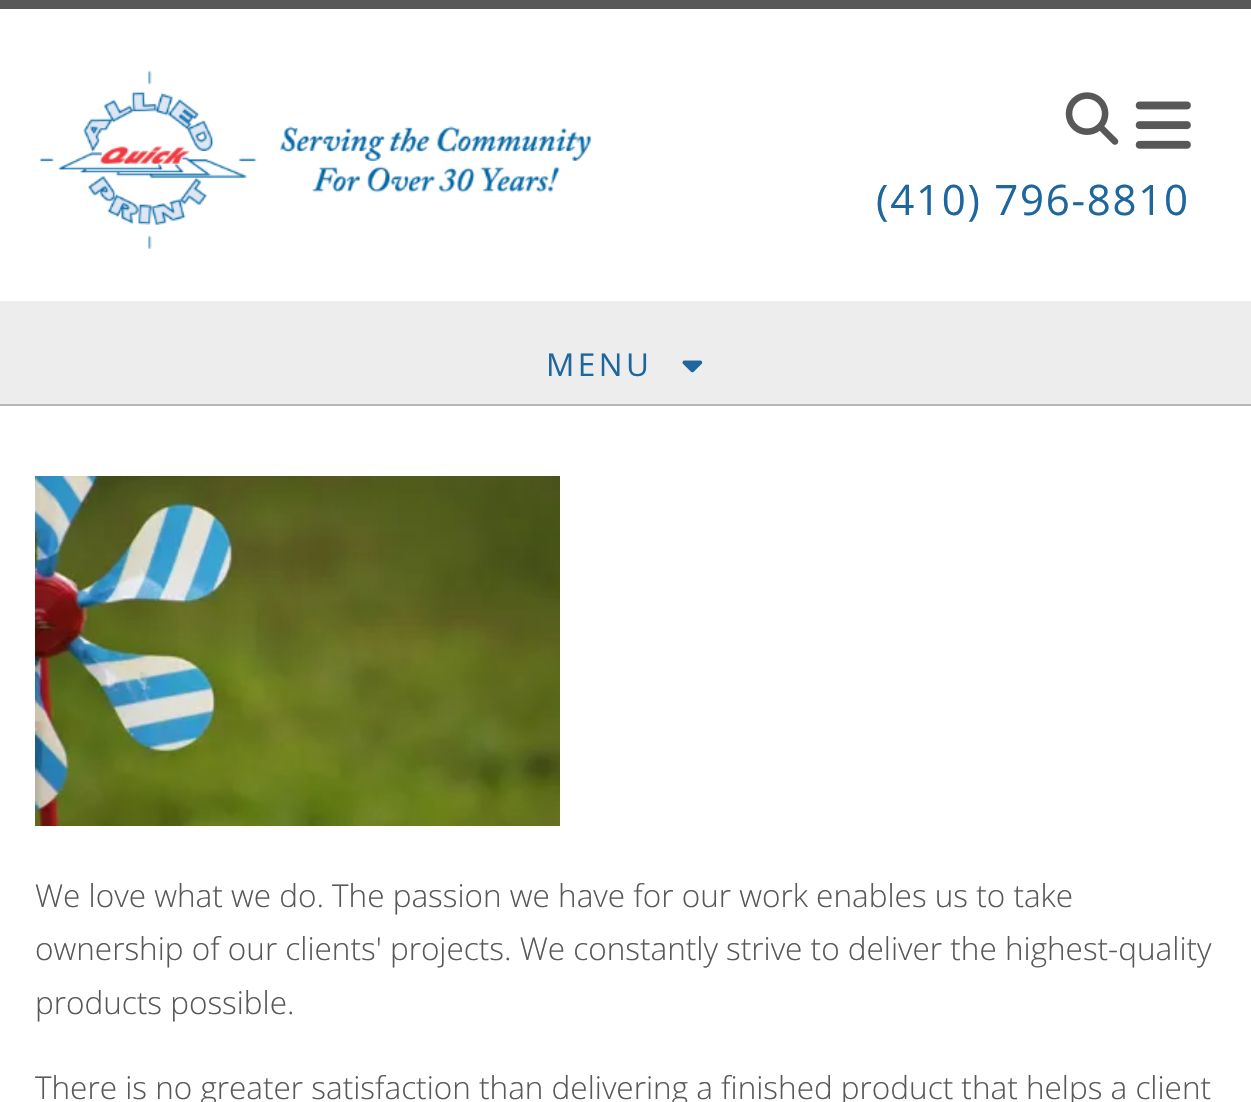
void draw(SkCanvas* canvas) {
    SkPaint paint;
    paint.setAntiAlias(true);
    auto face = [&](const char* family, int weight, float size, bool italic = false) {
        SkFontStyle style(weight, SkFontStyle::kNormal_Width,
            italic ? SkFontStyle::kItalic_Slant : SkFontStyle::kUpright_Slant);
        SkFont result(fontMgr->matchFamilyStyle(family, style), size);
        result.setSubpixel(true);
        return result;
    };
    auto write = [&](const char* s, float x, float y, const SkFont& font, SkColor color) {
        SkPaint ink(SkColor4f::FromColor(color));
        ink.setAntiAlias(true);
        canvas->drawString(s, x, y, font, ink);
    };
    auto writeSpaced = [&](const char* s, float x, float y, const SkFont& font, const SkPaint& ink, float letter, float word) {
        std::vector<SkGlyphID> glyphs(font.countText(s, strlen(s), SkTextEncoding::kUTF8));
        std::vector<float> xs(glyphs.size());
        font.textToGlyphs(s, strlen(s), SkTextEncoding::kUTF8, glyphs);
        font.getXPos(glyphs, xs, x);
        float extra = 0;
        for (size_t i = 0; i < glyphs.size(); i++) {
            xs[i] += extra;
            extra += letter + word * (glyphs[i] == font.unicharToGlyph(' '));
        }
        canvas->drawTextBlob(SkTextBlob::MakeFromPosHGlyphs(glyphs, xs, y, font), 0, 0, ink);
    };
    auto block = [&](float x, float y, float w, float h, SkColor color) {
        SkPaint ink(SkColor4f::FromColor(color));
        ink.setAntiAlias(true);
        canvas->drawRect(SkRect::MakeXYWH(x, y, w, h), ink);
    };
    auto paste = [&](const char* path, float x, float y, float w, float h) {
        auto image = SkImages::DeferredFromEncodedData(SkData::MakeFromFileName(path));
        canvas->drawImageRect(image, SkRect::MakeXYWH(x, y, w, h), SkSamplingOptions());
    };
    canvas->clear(SkColorSetRGB(88, 88, 88));
    block(0, 9, 1251, 292, SK_ColorWHITE);
    paste("pic1.png", 39, 70, 553, 179);
    paste("pic2.png", 1065, 92, 54, 53);
    paste("pic3.png", 1135, 101, 56, 48);
    auto kFont1 = face("Open Sans", 400, 42);
    paint.setColor(SkColorSetRGB(29, 102, 158));
    writeSpaced("(410) 796-8810", 876, 215, kFont1, paint, 1.75f, 0);
    block(0, 406, 1251, 696, SK_ColorWHITE);
    block(0, 301, 1251, 103, SkColorSetRGB(237, 237, 237));
    block(0, 404, 1251, 2, SkColorSetRGB(182, 182, 182));
    auto kFont2 = face("Open Sans", 400, 31.5f);
    writeSpaced("MENU", 546, 376, kFont2, paint, 3.5f, 0);
    paste("pic4.png", 682, 360, 21, 13);
    paste("pic5.png", 35, 476, 525, 350);
    auto kFont3 = face("Open Sans", 300, 31.5f);
    write("We love what we do. The passion we have for our work enables us to take", 35, 907, kFont3, SkColorSetRGB(88, 88, 88));
    write("ownership of our clients' projects. We constantly strive to deliver the highest-quality", 35, 960, kFont3, SkColorSetRGB(88, 88, 88));
    write("products possible.", 35, 1014, kFont3, SkColorSetRGB(88, 88, 88));
    write("There is no greater satisfaction than delivering a finished product that helps a client", 35, 1099, kFont3, SkColorSetRGB(88, 88, 88));
}
